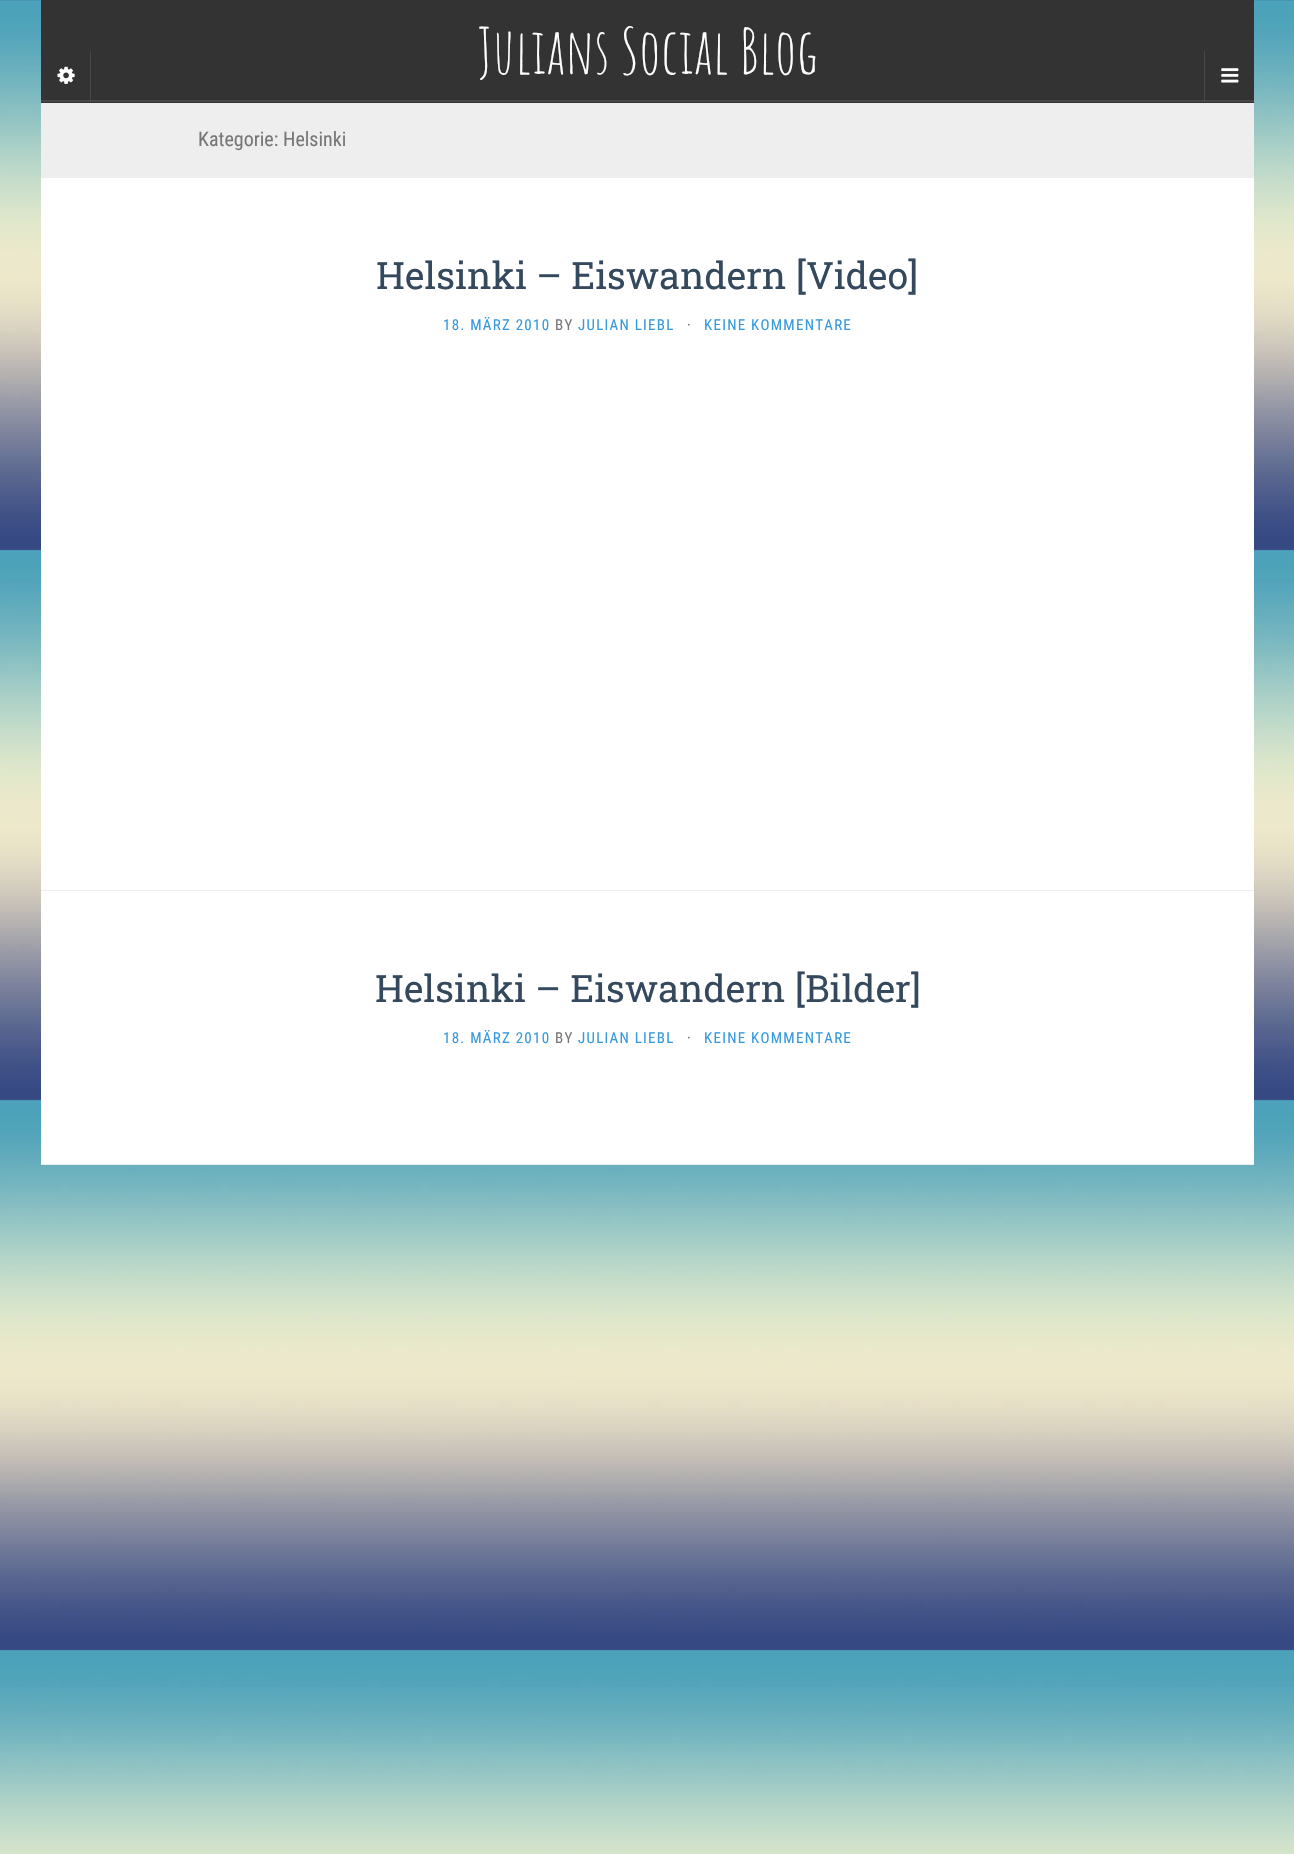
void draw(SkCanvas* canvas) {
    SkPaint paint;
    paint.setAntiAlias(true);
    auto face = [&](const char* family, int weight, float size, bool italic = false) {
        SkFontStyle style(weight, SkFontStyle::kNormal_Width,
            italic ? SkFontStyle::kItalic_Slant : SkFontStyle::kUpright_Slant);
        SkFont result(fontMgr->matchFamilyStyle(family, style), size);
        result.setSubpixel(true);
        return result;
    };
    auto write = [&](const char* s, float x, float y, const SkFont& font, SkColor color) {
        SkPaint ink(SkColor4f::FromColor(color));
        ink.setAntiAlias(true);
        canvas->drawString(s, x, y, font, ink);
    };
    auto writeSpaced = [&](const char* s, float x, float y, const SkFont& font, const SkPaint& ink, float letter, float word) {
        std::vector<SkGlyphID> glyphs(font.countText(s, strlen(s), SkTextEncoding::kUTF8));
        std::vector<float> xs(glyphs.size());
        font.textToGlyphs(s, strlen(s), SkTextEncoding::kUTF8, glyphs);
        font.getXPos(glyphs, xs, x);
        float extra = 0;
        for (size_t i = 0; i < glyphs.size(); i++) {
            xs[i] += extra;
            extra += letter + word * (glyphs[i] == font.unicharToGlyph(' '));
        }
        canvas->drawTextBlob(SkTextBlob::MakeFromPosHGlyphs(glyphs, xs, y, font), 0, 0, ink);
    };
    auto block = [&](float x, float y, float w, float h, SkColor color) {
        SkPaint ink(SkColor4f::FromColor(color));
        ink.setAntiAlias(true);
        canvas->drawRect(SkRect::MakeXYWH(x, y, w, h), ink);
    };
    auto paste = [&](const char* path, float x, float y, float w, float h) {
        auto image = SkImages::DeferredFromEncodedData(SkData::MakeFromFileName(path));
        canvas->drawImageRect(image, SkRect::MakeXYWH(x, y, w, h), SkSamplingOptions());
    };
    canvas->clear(SK_ColorWHITE);
    paste("pic1.png", 0, 0, 1294, 1854);
    block(41, 0, 1213, 103, SkColorSetRGB(51, 51, 51));
    block(41, 100, 1213, 2, SkColorSetRGB(71, 71, 71));
    block(90, 51, 1, 50, SkColorSetARGB(26, 255, 255, 255));
    paste("pic2.png", 57, 66, 18, 18);
    auto kFont1 = face("Amatic SC", 400, 62.5f);
    write("Julians Social Blog", 478, 74, kFont1, SK_ColorWHITE);
    block(1204, 51, 1, 50, SkColorSetARGB(26, 255, 255, 255));
    paste("pic3.png", 1221, 68, 18, 15);
    block(41, 178, 1213, 986, SK_ColorWHITE);
    block(41, 103, 1213, 75, SkColorSetRGB(238, 238, 238));
    auto kFont2 = face("Roboto Condensed", 400, 20);
    write("Kategorie: Helsinki", 198, 146, kFont2, SkColorSetRGB(119, 119, 119));
    block(41, 890, 1213, 1, SkColorSetRGB(238, 238, 238));
    auto kFont3 = face("Roboto Slab", 400, 37.5f);
    write("Helsinki – Eiswandern [Video]", 376, 289, kFont3, SkColorSetRGB(52, 73, 94));
    auto kFont4 = face("Roboto Condensed", 400, 15);
    paint.setColor(SkColorSetRGB(54, 153, 220));
    writeSpaced("18. MÄRZ 2010", 443, 330, kFont4, paint, 1.25f, 0);
    paint.setColor(SkColorSetRGB(119, 119, 119));
    writeSpaced("BY", 555, 330, kFont4, paint, 1.25f, 0);
    paint.setColor(SkColorSetRGB(54, 153, 220));
    writeSpaced("JULIAN LIEBL", 578, 330, kFont4, paint, 1.25f, 0);
    paint.setColor(SkColorSetRGB(119, 119, 119));
    writeSpaced("·", 687, 330, kFont4, paint, 1.25f, 0);
    paint.setColor(SkColorSetRGB(54, 153, 220));
    writeSpaced("KEINE KOMMENTARE", 704, 330, kFont4, paint, 1.25f, 0);
    block(41, 1164, 1213, 1, SkColorSetRGB(238, 238, 238));
    write("Helsinki – Eiswandern [Bilder]", 375, 1002, kFont3, SkColorSetRGB(52, 73, 94));
    writeSpaced("18. MÄRZ 2010", 443, 1043, kFont4, paint, 1.25f, 0);
    paint.setColor(SkColorSetRGB(119, 119, 119));
    writeSpaced("BY", 555, 1043, kFont4, paint, 1.25f, 0);
    paint.setColor(SkColorSetRGB(54, 153, 220));
    writeSpaced("JULIAN LIEBL", 578, 1043, kFont4, paint, 1.25f, 0);
    paint.setColor(SkColorSetRGB(119, 119, 119));
    writeSpaced("·", 687, 1043, kFont4, paint, 1.25f, 0);
    paint.setColor(SkColorSetRGB(54, 153, 220));
    writeSpaced("KEINE KOMMENTARE", 704, 1043, kFont4, paint, 1.25f, 0);
}
